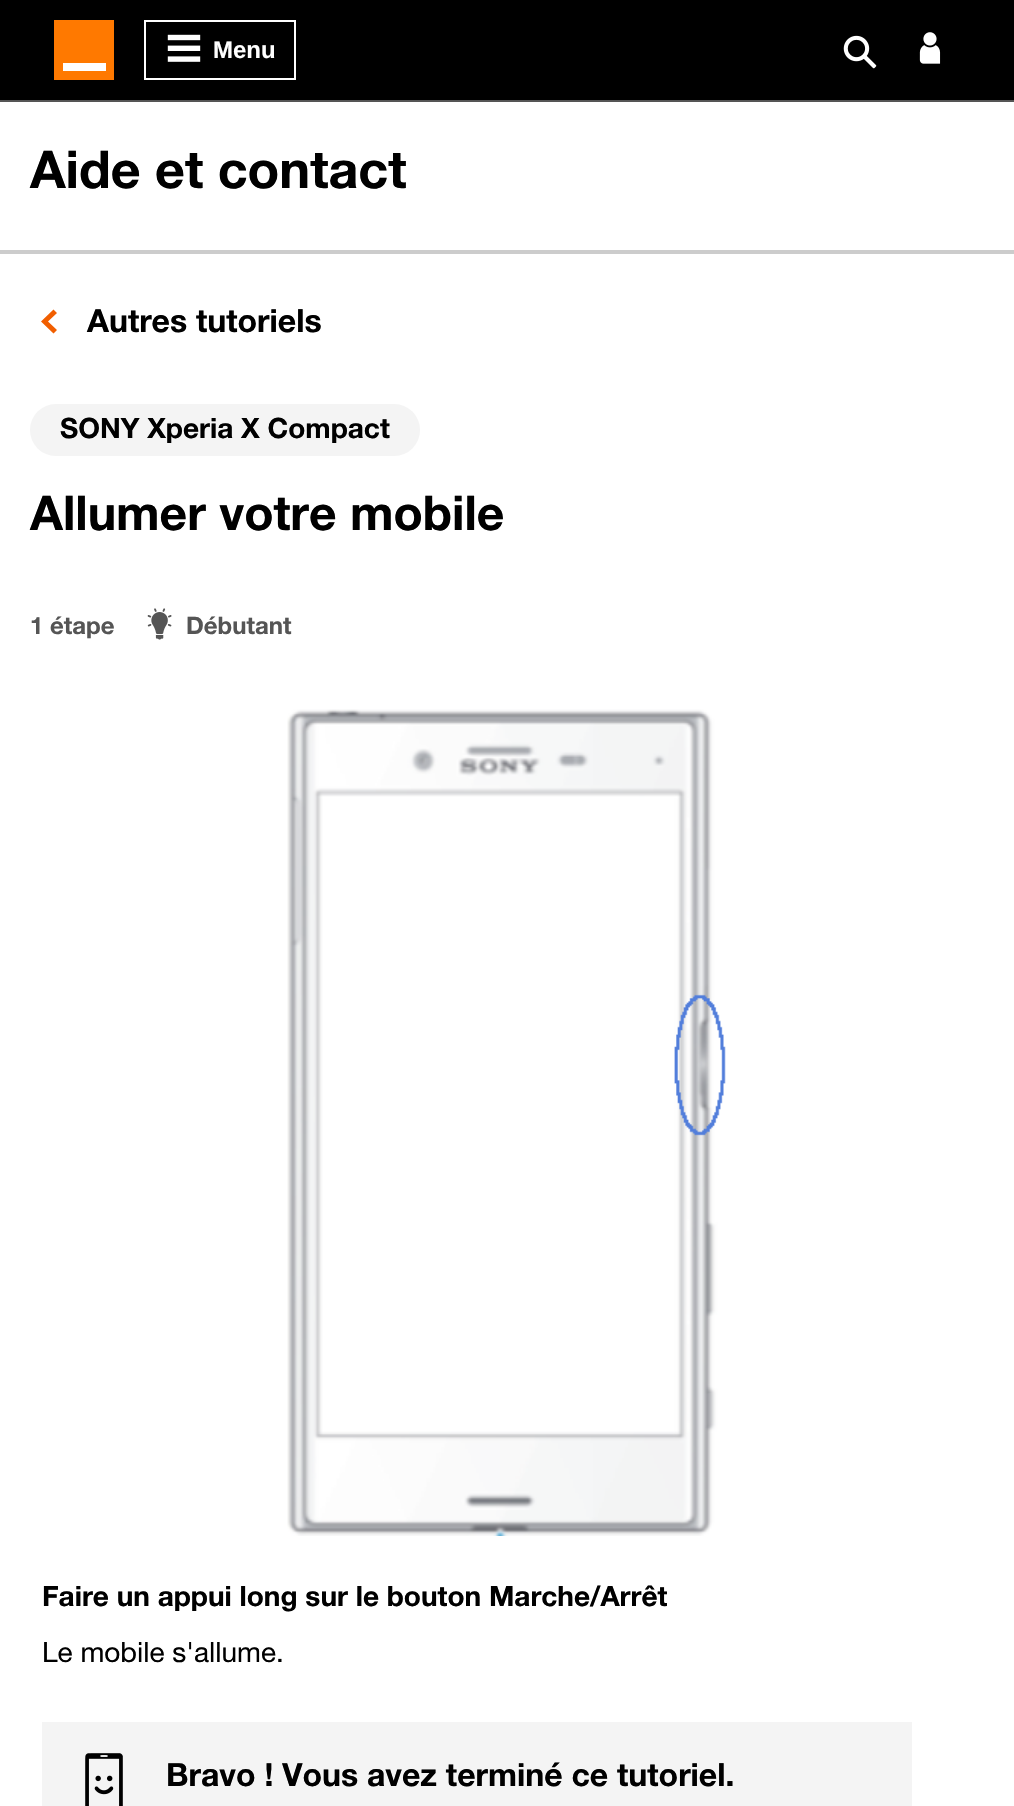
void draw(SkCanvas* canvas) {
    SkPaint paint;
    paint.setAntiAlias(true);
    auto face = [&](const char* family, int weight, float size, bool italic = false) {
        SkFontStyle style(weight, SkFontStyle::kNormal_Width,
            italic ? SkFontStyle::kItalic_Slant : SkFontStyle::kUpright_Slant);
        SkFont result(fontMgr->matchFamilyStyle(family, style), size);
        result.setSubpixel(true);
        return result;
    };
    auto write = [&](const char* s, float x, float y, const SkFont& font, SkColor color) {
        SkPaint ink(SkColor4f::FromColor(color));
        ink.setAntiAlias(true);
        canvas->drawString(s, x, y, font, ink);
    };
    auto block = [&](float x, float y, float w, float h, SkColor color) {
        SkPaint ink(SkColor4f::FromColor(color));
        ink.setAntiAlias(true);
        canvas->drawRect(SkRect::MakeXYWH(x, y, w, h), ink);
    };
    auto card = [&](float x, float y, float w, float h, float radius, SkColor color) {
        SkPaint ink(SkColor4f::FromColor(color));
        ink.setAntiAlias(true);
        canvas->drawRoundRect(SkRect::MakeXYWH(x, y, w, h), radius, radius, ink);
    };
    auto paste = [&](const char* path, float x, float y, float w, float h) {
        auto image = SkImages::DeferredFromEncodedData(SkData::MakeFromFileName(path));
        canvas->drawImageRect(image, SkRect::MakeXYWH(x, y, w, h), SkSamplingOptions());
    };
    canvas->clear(SK_ColorWHITE);
    block(0, 0, 1014, 100, SK_ColorBLACK);
    block(54, 20, 60, 60, SkColorSetRGB(255, 121, 0));
    block(63, 63, 43, 8, SK_ColorWHITE);
    paint.setStyle(SkPaint::kStroke_Style);
    paint.setStrokeWidth(2);
    paint.setColor(SK_ColorWHITE);
    canvas->drawRect(SkRect::MakeXYWH(145, 21, 150, 58), paint);
    paste("pic1.png", 167, 34, 34, 28);
    auto kFont1 = face("Liberation Sans", 700, 24);
    write("Menu", 213, 58, kFont1, SK_ColorWHITE);
    paste("pic2.png", 843, 35, 34, 34);
    paste("pic3.png", 919, 32, 22, 32);
    block(0, 100, 1014, 2, SkColorSetRGB(85, 85, 85));
    block(0, 250, 1014, 4, SkColorSetRGB(204, 204, 204));
    auto kFont2 = face("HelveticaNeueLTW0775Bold", 700, 52);
    write("Aide et contact", 30, 188, kFont2, SK_ColorBLACK);
    paint.setStyle(SkPaint::kFill_Style);
    paint.setColor(SkColorSetRGB(241, 94, 0));
    canvas->drawPath(SkPathBuilder().moveTo(53.5f, 309.5f).lineTo(41, 321.5f).lineTo(53.5f, 333.5f).lineTo(57, 330).lineTo(48, 321.5f).lineTo(57, 313).close().detach(), paint);
    auto kFont3 = face("HelveticaNeueLTW0775Bold", 700, 32);
    write("Autres tutoriels", 87, 332, kFont3, SK_ColorBLACK);
    card(30, 404, 390, 52, 26, SkColorSetRGB(244, 244, 244));
    auto kFont4 = face("HelveticaNeueLTW0775Bold", 700, 28);
    write("SONY Xperia X Compact", 60, 438, kFont4, SK_ColorBLACK);
    auto kFont5 = face("HelveticaNeueLTW0775Bold", 700, 48);
    write("Allumer votre mobile", 30, 530, kFont5, SK_ColorBLACK);
    auto kFont6 = face("HelveticaNeueLTW0775Bold", 700, 24);
    write("1 étape", 30, 634, kFont6, SkColorSetRGB(85, 85, 85));
    paste("pic4.png", 147, 608, 25, 32);
    write("Débutant", 186, 634, kFont6, SkColorSetRGB(85, 85, 85));
    paste("pic5.png", 287, 709, 439, 827);
    write("Faire un appui long sur le bouton Marche/Arrêt", 42, 1606, kFont4, SK_ColorBLACK);
    auto kFont7 = face("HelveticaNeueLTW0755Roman", 400, 28);
    write("Le mobile s'allume.", 42, 1662, kFont7, SK_ColorBLACK);
    block(42, 1722, 870, 84, SkColorSetRGB(244, 244, 244));
    paste("pic6.png", 85, 1753, 38, 53);
    write("Bravo ! Vous avez terminé ce tutoriel.", 166, 1786, kFont3, SK_ColorBLACK);
}
